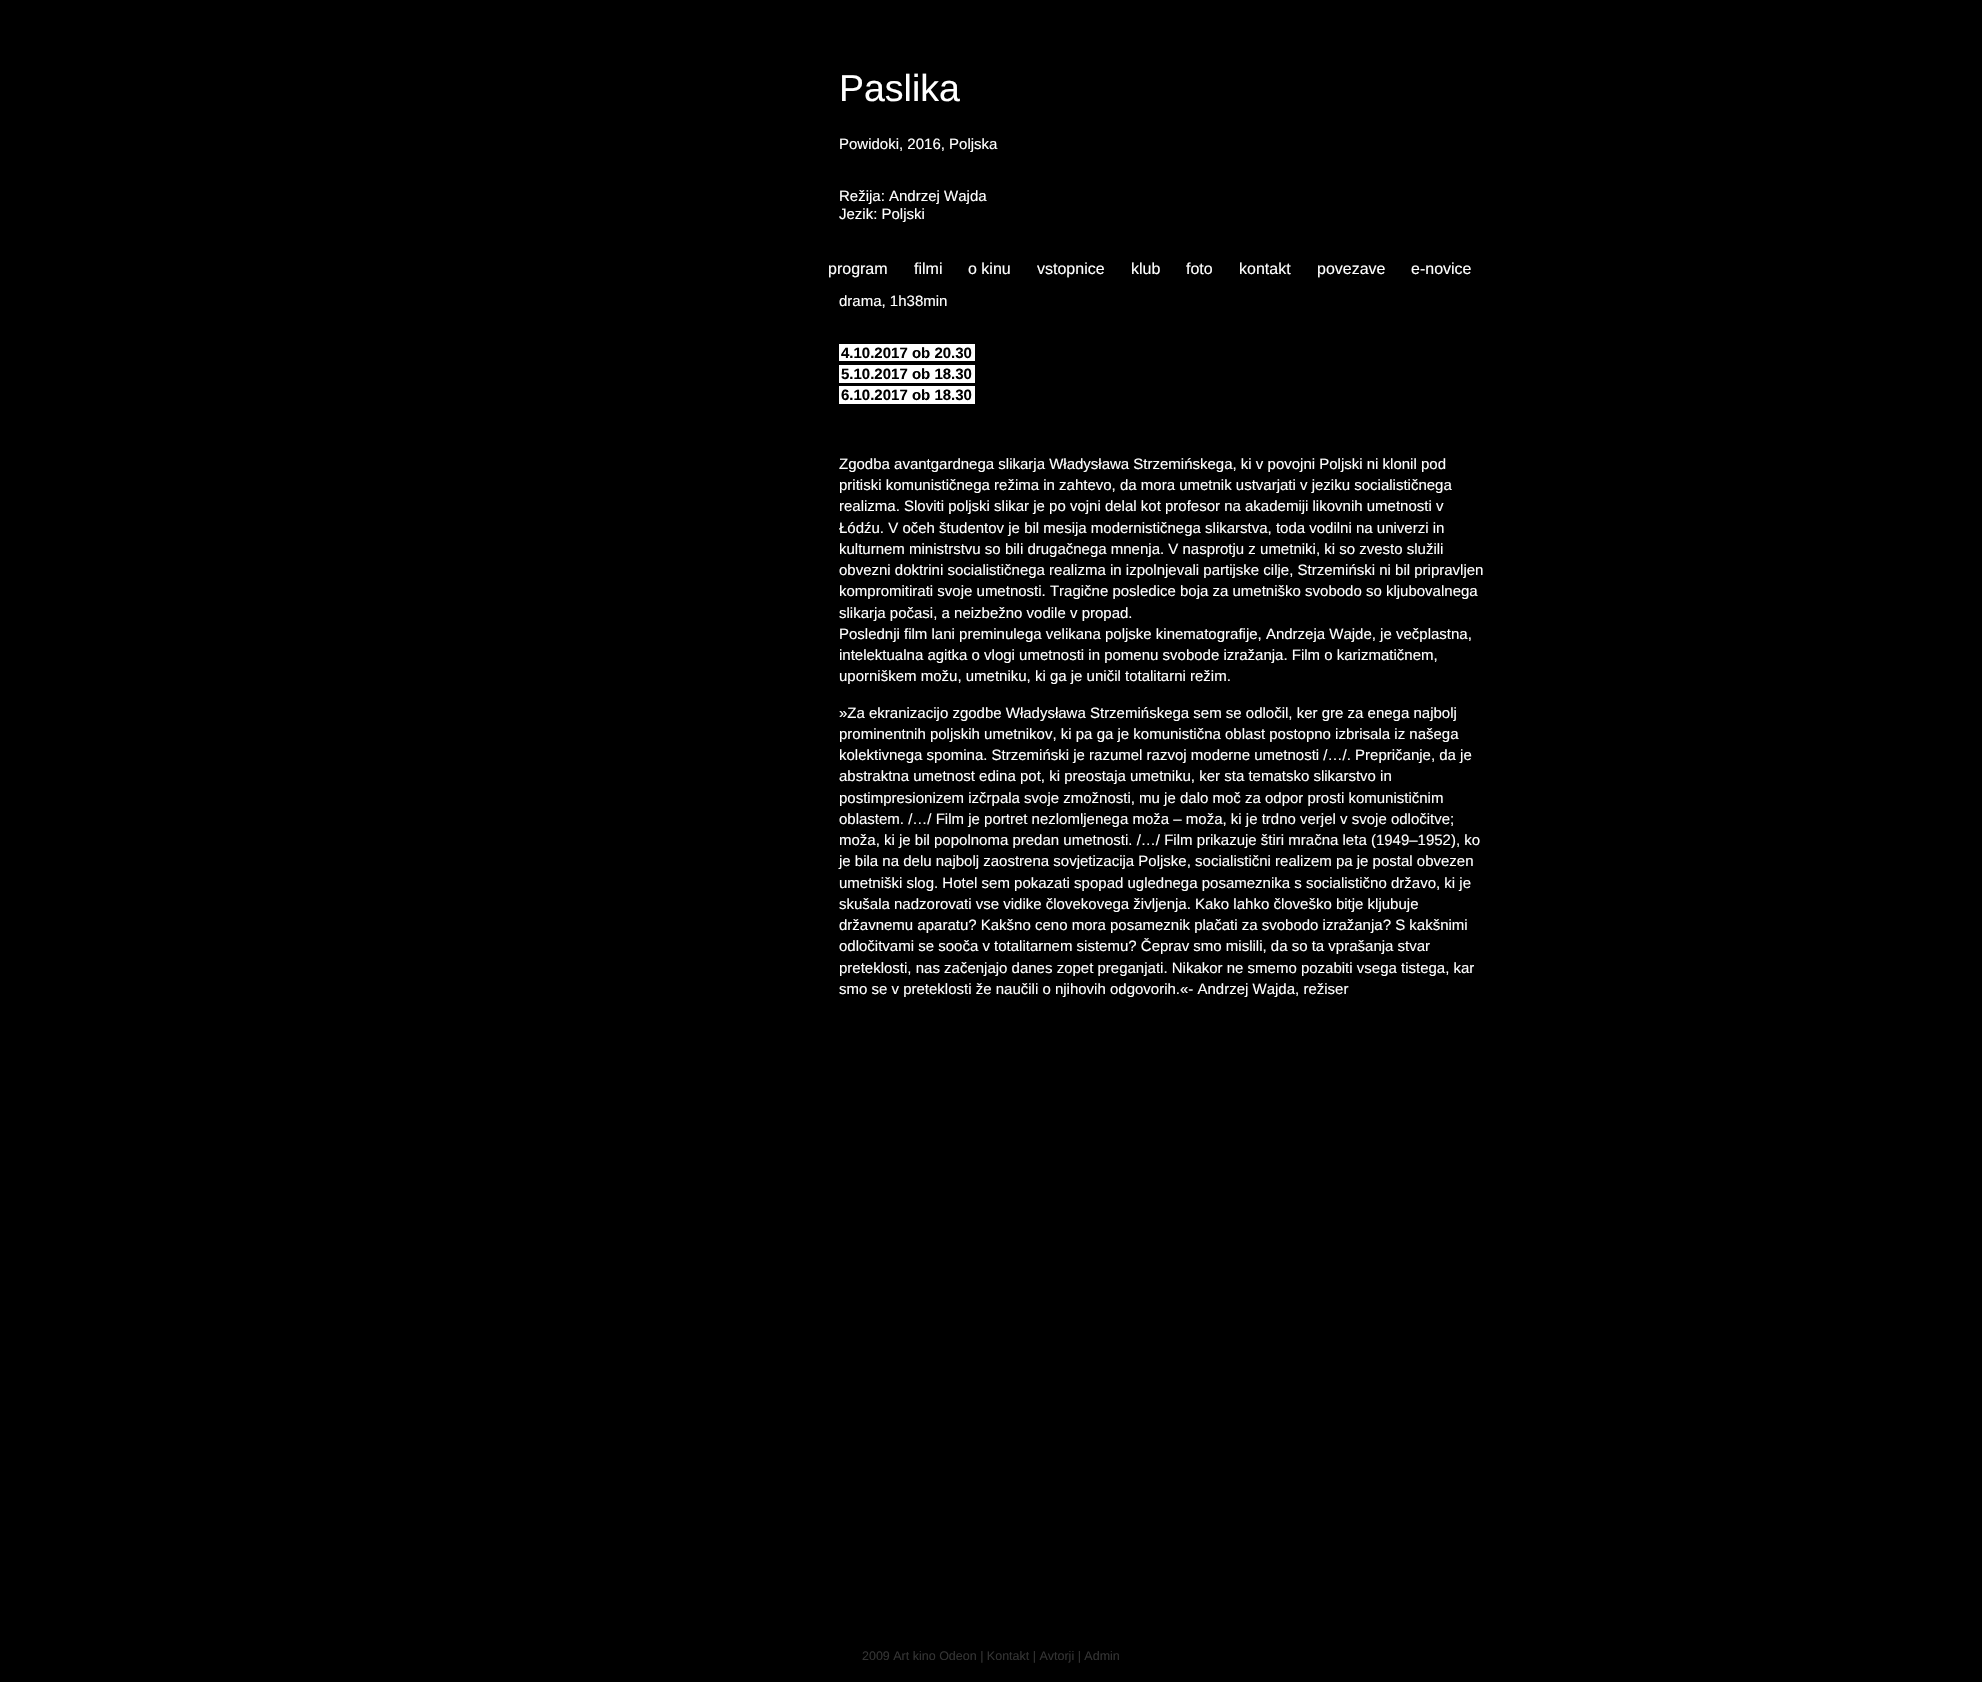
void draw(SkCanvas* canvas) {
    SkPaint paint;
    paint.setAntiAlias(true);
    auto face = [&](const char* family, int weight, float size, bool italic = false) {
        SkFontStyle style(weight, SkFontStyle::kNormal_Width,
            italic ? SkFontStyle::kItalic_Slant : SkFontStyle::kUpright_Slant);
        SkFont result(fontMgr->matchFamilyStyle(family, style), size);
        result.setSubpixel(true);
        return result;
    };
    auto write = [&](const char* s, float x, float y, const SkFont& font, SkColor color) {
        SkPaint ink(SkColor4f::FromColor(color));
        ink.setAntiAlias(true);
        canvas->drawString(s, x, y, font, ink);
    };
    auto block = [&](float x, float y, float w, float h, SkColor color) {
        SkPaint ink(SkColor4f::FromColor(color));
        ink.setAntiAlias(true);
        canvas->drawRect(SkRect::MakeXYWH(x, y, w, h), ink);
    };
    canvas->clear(SK_ColorBLACK);
    auto kFont1 = face("Liberation Sans", 400, 37.5f);
    write("Paslika", 839, 101, kFont1, SK_ColorWHITE);
    auto kFont2 = face("Liberation Sans", 400, 15);
    write("Powidoki, 2016, Poljska", 839, 149, kFont2, SK_ColorWHITE);
    write("Režija: Andrzej Wajda", 839, 201, kFont2, SK_ColorWHITE);
    write("Jezik: Poljski", 839, 219, kFont2, SK_ColorWHITE);
    write("drama, 1h38min", 839, 306, kFont2, SK_ColorWHITE);
    block(839, 344, 136, 17, SK_ColorWHITE);
    auto kFont3 = face("Liberation Sans", 700, 15);
    write("4.10.2017 ob 20.30", 841, 358, kFont3, SK_ColorBLACK);
    block(839, 365, 136, 18, SK_ColorWHITE);
    write("5.10.2017 ob 18.30", 841, 379, kFont3, SK_ColorBLACK);
    block(839, 386, 136, 18, SK_ColorWHITE);
    write("6.10.2017 ob 18.30", 841, 400, kFont3, SK_ColorBLACK);
    write("Zgodba avantgardnega slikarja Władysława Strzemińskega, ki v povojni Poljski ni klonil pod", 839, 469, kFont2, SK_ColorWHITE);
    write("pritiski komunističnega režima in zahtevo, da mora umetnik ustvarjati v jeziku socialističnega", 839, 490, kFont2, SK_ColorWHITE);
    write("realizma. Sloviti poljski slikar je po vojni delal kot profesor na akademiji likovnih umetnosti v", 839, 511, kFont2, SK_ColorWHITE);
    write("Łódźu. V očeh študentov je bil mesija modernističnega slikarstva, toda vodilni na univerzi in", 839, 533, kFont2, SK_ColorWHITE);
    write("kulturnem ministrstvu so bili drugačnega mnenja. V nasprotju z umetniki, ki so zvesto služili", 839, 554, kFont2, SK_ColorWHITE);
    write("obvezni doktrini socialističnega realizma in izpolnjevali partijske cilje, Strzemiński ni bil pripravljen", 839, 575, kFont2, SK_ColorWHITE);
    write("kompromitirati svoje umetnosti. Tragične posledice boja za umetniško svobodo so kljubovalnega", 839, 596, kFont2, SK_ColorWHITE);
    write("slikarja počasi, a neizbežno vodile v propad.", 839, 618, kFont2, SK_ColorWHITE);
    write("Poslednji film lani preminulega velikana poljske kinematografije, Andrzeja Wajde, je večplastna,", 839, 639, kFont2, SK_ColorWHITE);
    write("intelektualna agitka o vlogi umetnosti in pomenu svobode izražanja. Film o karizmatičnem,", 839, 660, kFont2, SK_ColorWHITE);
    write("uporniškem možu, umetniku, ki ga je uničil totalitarni režim.", 839, 681, kFont2, SK_ColorWHITE);
    write("»Za ekranizacijo zgodbe Władysława Strzemińskega sem se odločil, ker gre za enega najbolj", 839, 718, kFont2, SK_ColorWHITE);
    write("prominentnih poljskih umetnikov, ki pa ga je komunistična oblast postopno izbrisala iz našega", 839, 739, kFont2, SK_ColorWHITE);
    write("kolektivnega spomina. Strzemiński je razumel razvoj moderne umetnosti /…/. Prepričanje, da je", 839, 760, kFont2, SK_ColorWHITE);
    write("abstraktna umetnost edina pot, ki preostaja umetniku, ker sta tematsko slikarstvo in", 839, 781, kFont2, SK_ColorWHITE);
    write("postimpresionizem izčrpala svoje zmožnosti, mu je dalo moč za odpor prosti komunističnim", 839, 803, kFont2, SK_ColorWHITE);
    write("oblastem. /…/ Film je portret nezlomljenega moža – moža, ki je trdno verjel v svoje odločitve;", 839, 824, kFont2, SK_ColorWHITE);
    write("moža, ki je bil popolnoma predan umetnosti. /…/ Film prikazuje štiri mračna leta (1949–1952), ko", 839, 845, kFont2, SK_ColorWHITE);
    write("je bila na delu najbolj zaostrena sovjetizacija Poljske, socialistični realizem pa je postal obvezen", 839, 866, kFont2, SK_ColorWHITE);
    write("umetniški slog. Hotel sem pokazati spopad uglednega posameznika s socialistično državo, ki je", 839, 888, kFont2, SK_ColorWHITE);
    write("skušala nadzorovati vse vidike človekovega življenja. Kako lahko človeško bitje kljubuje", 839, 909, kFont2, SK_ColorWHITE);
    write("državnemu aparatu? Kakšno ceno mora posameznik plačati za svobodo izražanja? S kakšnimi", 839, 930, kFont2, SK_ColorWHITE);
    write("odločitvami se sooča v totalitarnem sistemu? Čeprav smo mislili, da so ta vprašanja stvar", 839, 951, kFont2, SK_ColorWHITE);
    write("preteklosti, nas začenjajo danes zopet preganjati. Nikakor ne smemo pozabiti vsega tistega, kar", 839, 973, kFont2, SK_ColorWHITE);
    write("smo se v preteklosti že naučili o njihovih odgovorih.«- Andrzej Wajda, režiser", 839, 994, kFont2, SK_ColorWHITE);
    auto kFont4 = face("Liberation Sans", 400, 12.5f);
    write("2009 Art kino Odeon | Kontakt | Avtorji | Admin", 862, 1660, kFont4, SkColorSetRGB(51, 51, 51));
    auto kFont5 = face("Liberation Sans", 400, 16);
    write("program", 828, 274, kFont5, SK_ColorWHITE);
    write("filmi", 914, 274, kFont5, SK_ColorWHITE);
    write("o kinu", 968, 274, kFont5, SK_ColorWHITE);
    write("vstopnice", 1037, 274, kFont5, SK_ColorWHITE);
    write("klub", 1131, 274, kFont5, SK_ColorWHITE);
    write("foto", 1186, 274, kFont5, SK_ColorWHITE);
    write("kontakt", 1239, 274, kFont5, SK_ColorWHITE);
    write("povezave", 1317, 274, kFont5, SK_ColorWHITE);
    write("e-novice", 1411, 274, kFont5, SK_ColorWHITE);
}
